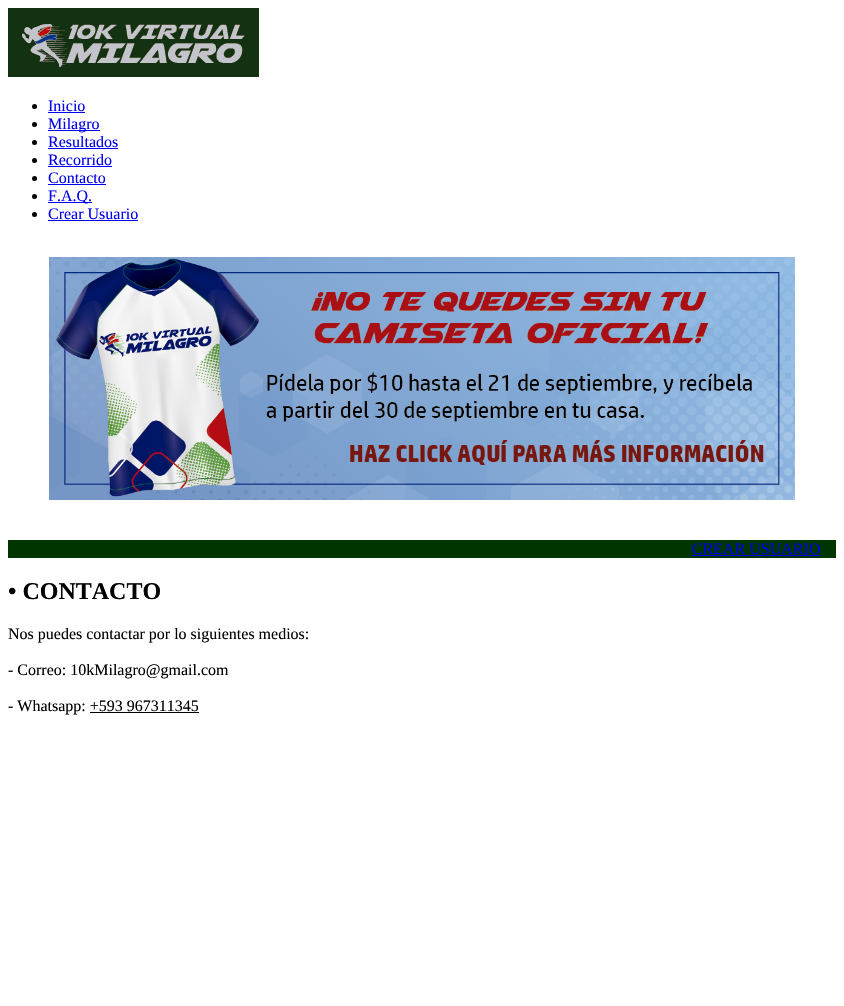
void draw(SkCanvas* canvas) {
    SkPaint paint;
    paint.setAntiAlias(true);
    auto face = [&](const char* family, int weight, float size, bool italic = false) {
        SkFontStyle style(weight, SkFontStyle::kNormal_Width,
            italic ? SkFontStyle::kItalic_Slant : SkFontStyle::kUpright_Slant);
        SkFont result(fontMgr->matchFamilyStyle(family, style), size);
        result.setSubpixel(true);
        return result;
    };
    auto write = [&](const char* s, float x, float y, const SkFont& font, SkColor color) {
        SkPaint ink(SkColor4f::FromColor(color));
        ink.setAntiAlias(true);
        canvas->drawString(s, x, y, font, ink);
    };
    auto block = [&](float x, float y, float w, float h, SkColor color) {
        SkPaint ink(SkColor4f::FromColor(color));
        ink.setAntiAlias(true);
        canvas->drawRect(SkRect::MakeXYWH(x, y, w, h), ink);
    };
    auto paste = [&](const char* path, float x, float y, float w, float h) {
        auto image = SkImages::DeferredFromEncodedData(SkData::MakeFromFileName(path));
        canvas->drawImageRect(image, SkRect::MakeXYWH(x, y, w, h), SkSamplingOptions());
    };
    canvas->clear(SK_ColorWHITE);
    paste("pic1.png", 8, 8, 251, 69);
    paint.setColor(SK_ColorBLACK);
    canvas->drawCircle(34.5f, 106.5f, 2.5f, paint);
    auto kFont1 = face("Liberation Serif", 400, 16);
    write("Inicio", 48, 111, kFont1, SkColorSetRGB(0, 0, 238));
    block(48, 112, 37, 1, SkColorSetRGB(0, 0, 238));
    canvas->drawCircle(34.5f, 124.5f, 2.5f, paint);
    block(48, 130, 52, 1, SkColorSetRGB(0, 0, 238));
    write("Milagro", 48, 129, kFont1, SkColorSetRGB(0, 0, 238));
    canvas->drawCircle(34.5f, 142.5f, 2.5f, paint);
    write("Resultados", 48, 147, kFont1, SkColorSetRGB(0, 0, 238));
    block(48, 148, 70, 1, SkColorSetRGB(0, 0, 238));
    canvas->drawCircle(34.5f, 160.5f, 2.5f, paint);
    write("Recorrido", 48, 165, kFont1, SkColorSetRGB(0, 0, 238));
    block(48, 166, 64, 1, SkColorSetRGB(0, 0, 238));
    canvas->drawCircle(34.5f, 178.5f, 2.5f, paint);
    write("Contacto", 48, 183, kFont1, SkColorSetRGB(0, 0, 238));
    block(48, 184, 58, 1, SkColorSetRGB(0, 0, 238));
    canvas->drawCircle(34.5f, 196.5f, 2.5f, paint);
    block(48, 202, 44, 1, SkColorSetRGB(0, 0, 238));
    write("F.A.Q.", 48, 201, kFont1, SkColorSetRGB(0, 0, 238));
    canvas->drawCircle(34.5f, 214.5f, 2.5f, paint);
    write("Crear Usuario", 48, 219, kFont1, SkColorSetRGB(0, 0, 238));
    block(48, 220, 90, 1, SkColorSetRGB(0, 0, 238));
    paste("pic2.png", 49, 257, 746, 243);
    block(8, 540, 828, 18, SkColorSetRGB(0, 53, 0));
    write("CREAR USUARIO", 692, 554, kFont1, SkColorSetRGB(0, 0, 238));
    block(692, 555, 128, 1, SkColorSetRGB(0, 0, 238));
    auto kFont2 = face("Liberation Serif", 700, 24);
    write("• CONTACTO", 8, 599, kFont2, SK_ColorBLACK);
    write("Nos puedes contactar por lo siguientes medios:", 8, 639, kFont1, SK_ColorBLACK);
    write("- Correo: 10kMilagro@gmail.com", 8, 675, kFont1, SK_ColorBLACK);
    write("- Whatsapp: +593 967311345", 8, 711, kFont1, SK_ColorBLACK);
    block(90, 712, 109, 1, SK_ColorBLACK);
}
